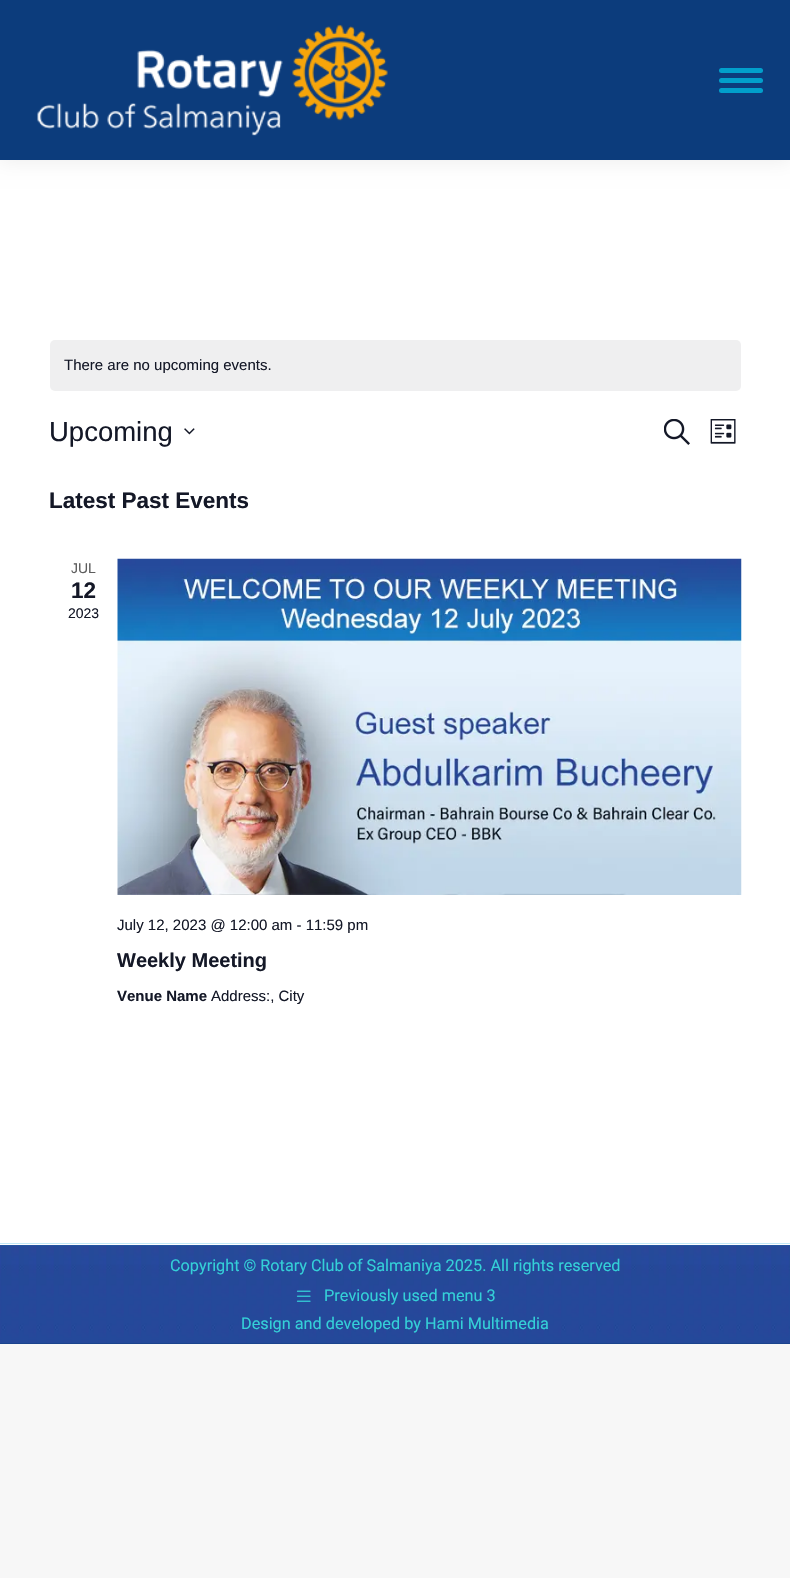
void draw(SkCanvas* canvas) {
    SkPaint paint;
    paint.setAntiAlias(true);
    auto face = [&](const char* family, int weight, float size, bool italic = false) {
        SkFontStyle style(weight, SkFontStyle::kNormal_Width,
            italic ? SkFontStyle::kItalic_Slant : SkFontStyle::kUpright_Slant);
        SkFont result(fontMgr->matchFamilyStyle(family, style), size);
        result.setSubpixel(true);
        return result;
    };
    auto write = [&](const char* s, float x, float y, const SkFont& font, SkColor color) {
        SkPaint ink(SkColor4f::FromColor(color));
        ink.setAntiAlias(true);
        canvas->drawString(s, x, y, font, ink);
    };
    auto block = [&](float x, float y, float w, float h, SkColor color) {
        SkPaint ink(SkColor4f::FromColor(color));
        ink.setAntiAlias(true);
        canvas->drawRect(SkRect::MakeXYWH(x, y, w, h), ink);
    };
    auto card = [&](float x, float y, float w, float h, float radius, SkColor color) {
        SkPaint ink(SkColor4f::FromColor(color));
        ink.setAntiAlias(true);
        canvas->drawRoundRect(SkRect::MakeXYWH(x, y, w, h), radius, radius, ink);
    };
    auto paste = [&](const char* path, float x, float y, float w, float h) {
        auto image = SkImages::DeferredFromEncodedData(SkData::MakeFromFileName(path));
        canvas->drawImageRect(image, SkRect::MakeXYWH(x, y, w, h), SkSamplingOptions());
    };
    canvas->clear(SkColorSetRGB(247, 247, 247));
    block(0, 160, 790, 1084, SK_ColorWHITE);
    paint.setColor(SkColorSetARGB(18, 0, 0, 0));
    paint.setMaskFilter(SkMaskFilter::MakeBlur(kNormal_SkBlurStyle, 9.5f));
    canvas->drawRect(SkRect::MakeXYWH(-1, -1, 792, 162), paint);
    paint.setMaskFilter(nullptr);
    block(0, 0, 790, 160, SkColorSetRGB(12, 60, 124));
    paste("pic1.png", 37, 24, 351, 112);
    card(719, 68, 44, 5, 2.5f, SkColorSetRGB(1, 159, 203));
    card(719, 78, 44, 5, 2.5f, SkColorSetRGB(1, 159, 203));
    card(719, 88, 44, 5, 2.5f, SkColorSetRGB(1, 159, 203));
    card(50, 340, 691, 51, 5, SkColorSetRGB(239, 239, 240));
    auto kFont1 = face("Liberation Sans", 400, 15);
    write("There are no upcoming events.", 64, 370, kFont1, SkColorSetRGB(20, 24, 39));
    auto kFont2 = face("Liberation Sans", 400, 27.5f);
    write("Upcoming", 49, 441, kFont2, SkColorSetRGB(20, 24, 39));
    paste("pic2.png", 184, 428, 11, 7);
    paste("pic3.png", 664, 419, 26, 26);
    paste("pic4.png", 710, 419, 26, 25);
    auto kFont3 = face("Liberation Sans", 700, 22.5f);
    write("Latest Past Events", 49, 508, kFont3, SkColorSetRGB(20, 24, 39));
    auto kFont4 = face("Liberation Sans", 400, 14);
    write("JUL", 71, 573, kFont4, SkColorSetRGB(93, 93, 93));
    write("12", 71, 598, kFont3, SkColorSetRGB(20, 24, 39));
    write("2023", 68, 618, kFont4, SkColorSetRGB(20, 24, 39));
    paste("pic5.png", 117, 558, 625, 337);
    write("July 12, 2023 @ 12:00 am - 11:59 pm", 117, 930, kFont1, SkColorSetRGB(20, 24, 39));
    auto kFont5 = face("Liberation Sans", 700, 20);
    write("Weekly Meeting", 117, 967, kFont5, SkColorSetRGB(20, 24, 39));
    auto kFont6 = face("Liberation Sans", 700, 15);
    write("Venue Name", 117, 1001, kFont6, SkColorSetRGB(20, 24, 39));
    write("Address:, City", 211, 1001, kFont1, SkColorSetRGB(20, 24, 39));
    block(0, 1343, 790, 1, SkColorSetRGB(12, 60, 124));
    paste("pic6.png", 0, 1243, 790, 101);
    block(0, 1244, 790, 1, SK_ColorWHITE);
    auto kFont7 = face("Roboto", 400, 16.25f);
    write("Copyright © Rotary Club of Salmaniya 2025. All rights reserved", 170, 1271, kFont7, SkColorSetRGB(52, 208, 216));
    paste("pic7.png", 296, 1290, 15, 12);
    write("Previously used menu 3", 324, 1301, kFont7, SkColorSetRGB(52, 208, 216));
    write("Design and developed by Hami Multimedia", 241, 1329, kFont7, SkColorSetRGB(52, 208, 216));
}
